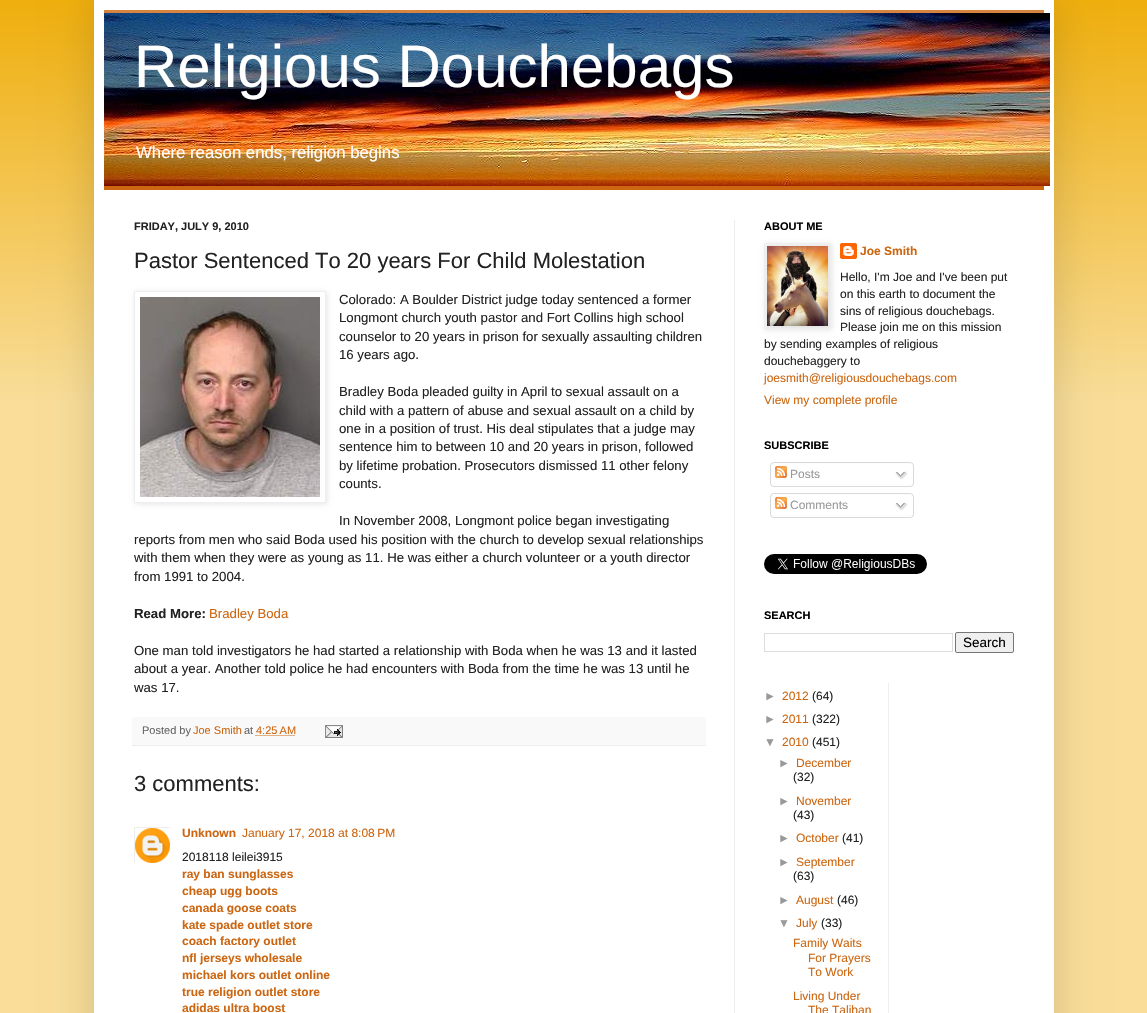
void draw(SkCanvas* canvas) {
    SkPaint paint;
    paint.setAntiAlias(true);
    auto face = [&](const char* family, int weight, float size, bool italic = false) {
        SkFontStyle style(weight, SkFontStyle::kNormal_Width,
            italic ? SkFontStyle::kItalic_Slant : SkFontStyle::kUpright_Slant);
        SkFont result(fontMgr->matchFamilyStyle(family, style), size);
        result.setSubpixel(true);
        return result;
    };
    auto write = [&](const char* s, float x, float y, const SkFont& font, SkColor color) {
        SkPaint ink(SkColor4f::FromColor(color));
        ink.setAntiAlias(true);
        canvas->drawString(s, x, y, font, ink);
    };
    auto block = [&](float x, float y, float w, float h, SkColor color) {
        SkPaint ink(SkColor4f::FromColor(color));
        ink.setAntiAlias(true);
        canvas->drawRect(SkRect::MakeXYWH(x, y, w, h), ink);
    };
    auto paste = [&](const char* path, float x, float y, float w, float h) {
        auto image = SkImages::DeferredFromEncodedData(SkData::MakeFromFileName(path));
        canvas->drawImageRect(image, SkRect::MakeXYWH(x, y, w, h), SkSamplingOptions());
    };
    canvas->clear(SkColorSetRGB(249, 221, 153));
    block(0, 0, 1147, 400, SkColorSetRGB(238, 170, 0));
    paste("pic1.png", 0, 0, 1147, 400);
    paint.setColor(SkColorSetARGB(38, 0, 0, 0));
    paint.setMaskFilter(SkMaskFilter::MakeBlur(kNormal_SkBlurStyle, 20));
    canvas->drawRect(SkRect::MakeXYWH(94, 0, 960, 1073), paint);
    paint.setMaskFilter(nullptr);
    block(94, 0, 960, 1013, SK_ColorWHITE);
    block(104, 10, 940, 180, SkColorSetRGB(204, 102, 17));
    paste("pic2.png", 104, 10, 940, 3);
    paste("pic3.png", 104, 13, 946, 173);
    auto kFont1 = face("Liberation Sans", 400, 60);
    write("Religious Douchebags", 134, 87, kFont1, SK_ColorWHITE);
    auto kFont2 = face("Liberation Sans", 400, 16.75f);
    write("Where reason ends, religion begins", 136, 158, kFont2, SK_ColorWHITE);
    block(734, 220, 1, 793, SkColorSetRGB(238, 238, 238));
    auto kFont3 = face("Liberation Sans", 700, 11);
    write("FRIDAY, JULY 9, 2010", 134, 230, kFont3, SkColorSetRGB(34, 34, 34));
    auto kFont4 = face("Liberation Sans", 400, 22);
    write("Pastor Sentenced To 20 years For Child Molestation", 134, 268, kFont4, SkColorSetRGB(34, 34, 34));
    canvas->save();
    canvas->clipPath(SkPathBuilder(SkPathFillType::kEvenOdd).moveTo(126, 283).lineTo(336, 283).lineTo(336, 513).lineTo(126, 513).close().moveTo(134, 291).lineTo(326, 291).lineTo(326, 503).lineTo(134, 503).close().detach(), true);
    paint.setColor(SkColorSetARGB(26, 0, 0, 0));
    paint.setMaskFilter(SkMaskFilter::MakeBlur(kNormal_SkBlurStyle, 2.5f));
    canvas->drawRect(SkRect::MakeXYWH(135, 292, 192, 212), paint);
    paint.setMaskFilter(nullptr);
    canvas->restore();
    paint.setStyle(SkPaint::kStroke_Style);
    paint.setStrokeWidth(1);
    paint.setColor(SkColorSetRGB(238, 238, 238));
    canvas->drawRect(SkRect::MakeXYWH(134.5f, 291.5f, 191, 211), paint);
    paste("pic4.png", 140, 297, 180, 200);
    auto kFont5 = face("Liberation Sans", 400, 13.2f);
    write("Colorado: A Boulder District judge today sentenced a former", 339, 304, kFont5, SkColorSetRGB(34, 34, 34));
    write("Longmont church youth pastor and Fort Collins high school", 339, 322, kFont5, SkColorSetRGB(34, 34, 34));
    write("counselor to 20 years in prison for sexually assaulting children", 339, 341, kFont5, SkColorSetRGB(34, 34, 34));
    write("16 years ago.", 339, 359, kFont5, SkColorSetRGB(34, 34, 34));
    write("Bradley Boda pleaded guilty in April to sexual assault on a", 339, 396, kFont5, SkColorSetRGB(34, 34, 34));
    write("child with a pattern of abuse and sexual assault on a child by", 339, 415, kFont5, SkColorSetRGB(34, 34, 34));
    write("one in a position of trust. His deal stipulates that a judge may", 339, 433, kFont5, SkColorSetRGB(34, 34, 34));
    write("sentence him to between 10 and 20 years in prison, followed", 339, 451, kFont5, SkColorSetRGB(34, 34, 34));
    write("by lifetime probation. Prosecutors dismissed 11 other felony", 339, 470, kFont5, SkColorSetRGB(34, 34, 34));
    write("counts.", 339, 488, kFont5, SkColorSetRGB(34, 34, 34));
    write("In November 2008, Longmont police began investigating", 339, 525, kFont5, SkColorSetRGB(34, 34, 34));
    write("reports from men who said Boda used his position with the church to develop sexual relationships", 134, 544, kFont5, SkColorSetRGB(34, 34, 34));
    write("with them when they were as young as 11. He was either a church volunteer or a youth director", 134, 562, kFont5, SkColorSetRGB(34, 34, 34));
    write("from 1991 to 2004.", 134, 581, kFont5, SkColorSetRGB(34, 34, 34));
    auto kFont6 = face("Liberation Sans", 700, 13.2f);
    write("Read More:", 134, 618, kFont6, SkColorSetRGB(34, 34, 34));
    write("Bradley Boda", 209, 618, kFont5, SkColorSetRGB(204, 102, 17));
    write("One man told investigators he had started a relationship with Boda when he was 13 and it lasted", 134, 655, kFont5, SkColorSetRGB(34, 34, 34));
    write("about a year. Another told police he had encounters with Boda from the time he was 13 until he", 134, 673, kFont5, SkColorSetRGB(34, 34, 34));
    write("was 17.", 134, 692, kFont5, SkColorSetRGB(34, 34, 34));
    block(132, 717, 574, 28, SkColorSetRGB(249, 249, 249));
    block(132, 745, 574, 1, SkColorSetRGB(238, 238, 238));
    auto kFont7 = face("Liberation Sans", 400, 11);
    write("Posted by", 142, 734, kFont7, SkColorSetRGB(102, 102, 102));
    write("Joe Smith", 193, 734, kFont7, SkColorSetRGB(204, 102, 17));
    write("at", 244, 734, kFont7, SkColorSetRGB(102, 102, 102));
    write("4:25 AM", 256, 734, kFont7, SkColorSetRGB(204, 102, 17));
    paint.setColor(SkColorSetRGB(204, 102, 17));
    paint.setPathEffect(SkDashPathEffect::Make({{1, 1}}, 0));
    canvas->drawPath(SkPathBuilder().moveTo(255.5f, 735.5f).lineTo(295, 735.5f).detach(), paint);
    paint.setPathEffect(nullptr);
    paste("pic5.png", 325, 725, 18, 13);
    write("3 comments:", 134, 791, kFont4, SkColorSetRGB(34, 34, 34));
    canvas->save();
    canvas->clipRect(SkRect::MakeXYWH(134, 827, 36, 36));
    paint.setColor(SkColorSetRGB(238, 238, 238));
    canvas->drawRect(SkRect::MakeXYWH(134.5f, 827.5f, 36, 36), paint);
    canvas->restore();
    paste("pic6.png", 135, 828, 35, 35);
    auto kFont8 = face("Liberation Sans", 700, 12);
    write("Unknown", 182, 837, kFont8, SkColorSetRGB(204, 102, 17));
    auto kFont9 = face("Liberation Sans", 400, 12);
    write("January 17, 2018 at 8:08 PM", 242, 837, kFont9, SkColorSetRGB(204, 102, 17));
    write("2018118 leilei3915", 182, 861, kFont9, SkColorSetRGB(34, 34, 34));
    write("ray ban sunglasses", 182, 878, kFont8, SkColorSetRGB(204, 102, 17));
    write("cheap ugg boots", 182, 895, kFont8, SkColorSetRGB(204, 102, 17));
    write("canada goose coats", 182, 912, kFont8, SkColorSetRGB(204, 102, 17));
    write("kate spade outlet store", 182, 929, kFont8, SkColorSetRGB(204, 102, 17));
    write("coach factory outlet", 182, 945, kFont8, SkColorSetRGB(204, 102, 17));
    write("nfl jerseys wholesale", 182, 962, kFont8, SkColorSetRGB(204, 102, 17));
    write("michael kors outlet online", 182, 979, kFont8, SkColorSetRGB(204, 102, 17));
    write("true religion outlet store", 182, 996, kFont8, SkColorSetRGB(204, 102, 17));
    write("adidas ultra boost", 182, 1012, kFont8, SkColorSetRGB(204, 102, 17));
    write("ABOUT ME", 764, 230, kFont3, SK_ColorBLACK);
    paste("pic8.png", 840, 243, 17, 16);
    paint.setStyle(SkPaint::kFill_Style);
    paint.setColor(SkColorSetARGB(26, 0, 0, 0));
    paint.setMaskFilter(SkMaskFilter::MakeBlur(kNormal_SkBlurStyle, 2.5f));
    canvas->drawRect(SkRect::MakeXYWH(765, 244, 67, 86), paint);
    paint.setMaskFilter(nullptr);
    paint.setStyle(SkPaint::kStroke_Style);
    paint.setColor(SkColorSetRGB(238, 238, 238));
    canvas->drawRect(SkRect::MakeXYWH(764.5f, 243.5f, 66, 85), paint);
    paste("pic7.png", 767, 246, 61, 80);
    write("Joe Smith", 860, 255, kFont8, SkColorSetRGB(204, 102, 17));
    write("Hello, I'm Joe and I've been put", 840, 281, kFont9, SkColorSetRGB(34, 34, 34));
    write("on this earth to document the", 840, 298, kFont9, SkColorSetRGB(34, 34, 34));
    write("sins of religious douchebags.", 840, 315, kFont9, SkColorSetRGB(34, 34, 34));
    write("Please join me on this mission", 840, 331, kFont9, SkColorSetRGB(34, 34, 34));
    write("by sending examples of religious", 764, 348, kFont9, SkColorSetRGB(34, 34, 34));
    write("douchebaggery to", 764, 365, kFont9, SkColorSetRGB(34, 34, 34));
    write("joesmith@religiousdouchebags.com", 764, 382, kFont9, SkColorSetRGB(204, 102, 17));
    write("View my complete profile", 764, 404, kFont9, SkColorSetRGB(204, 102, 17));
    write("SUBSCRIBE", 764, 449, kFont3, SK_ColorBLACK);
    paste("pic9.png", 770, 462, 144, 22);
    paste("pic10.png", 775, 466, 12, 12);
    write("Posts", 790, 478, kFont9, SkColorSetRGB(153, 153, 153));
    paste("pic11.png", 895, 471, 13, 9);
    paste("pic12.png", 770, 484, 144, 3);
    paste("pic9.png", 770, 493, 144, 22);
    paste("pic10.png", 775, 497, 12, 12);
    write("Comments", 790, 509, kFont9, SkColorSetRGB(153, 153, 153));
    paste("pic11.png", 895, 502, 13, 9);
    paste("pic12.png", 770, 515, 144, 3);
    paste("pic13.png", 764, 554, 163, 20);
    write("SEARCH", 764, 619, kFont3, SK_ColorBLACK);
    paint.setColor(SkColorSetRGB(221, 221, 221));
    canvas->drawRect(SkRect::MakeXYWH(764.5f, 633.5f, 188, 18), paint);
    paint.setStyle(SkPaint::kFill_Style);
    paint.setColor(SkColorSetRGB(239, 239, 239));
    canvas->drawRoundRect(SkRect::MakeXYWH(955.5f, 632.5f, 58, 20), 1.5f, 1.5f, paint);
    paint.setStyle(SkPaint::kStroke_Style);
    paint.setColor(SkColorSetRGB(118, 118, 118));
    canvas->drawRoundRect(SkRect::MakeXYWH(955.5f, 632.5f, 58, 20), 1.5f, 1.5f, paint);
    auto kFont10 = face("Liberation Sans", 400, 13.5f);
    write("Search", 963, 647, kFont10, SK_ColorBLACK);
    write("►", 764, 700, kFont9, SkColorSetRGB(153, 153, 153));
    write("2012", 782, 700, kFont9, SkColorSetRGB(204, 102, 17));
    write("(64)", 812, 700, kFont9, SkColorSetRGB(34, 34, 34));
    write("►", 764, 723, kFont9, SkColorSetRGB(153, 153, 153));
    write("2011", 782, 723, kFont9, SkColorSetRGB(204, 102, 17));
    write("(322)", 812, 723, kFont9, SkColorSetRGB(34, 34, 34));
    write("▼", 764, 746, kFont9, SkColorSetRGB(153, 153, 153));
    write("2010", 782, 746, kFont9, SkColorSetRGB(204, 102, 17));
    write("(451)", 812, 746, kFont9, SkColorSetRGB(34, 34, 34));
    write("►", 778, 767, kFont9, SkColorSetRGB(153, 153, 153));
    write("December", 796, 767, kFont9, SkColorSetRGB(204, 102, 17));
    write("(32)", 793, 781, kFont9, SkColorSetRGB(34, 34, 34));
    write("►", 778, 805, kFont9, SkColorSetRGB(153, 153, 153));
    write("November", 796, 805, kFont9, SkColorSetRGB(204, 102, 17));
    write("(43)", 793, 819, kFont9, SkColorSetRGB(34, 34, 34));
    write("►", 778, 842, kFont9, SkColorSetRGB(153, 153, 153));
    write("October", 796, 842, kFont9, SkColorSetRGB(204, 102, 17));
    write("(41)", 842, 842, kFont9, SkColorSetRGB(34, 34, 34));
    write("►", 778, 866, kFont9, SkColorSetRGB(153, 153, 153));
    write("September", 796, 866, kFont9, SkColorSetRGB(204, 102, 17));
    write("(63)", 793, 880, kFont9, SkColorSetRGB(34, 34, 34));
    write("►", 778, 904, kFont9, SkColorSetRGB(153, 153, 153));
    write("August", 796, 904, kFont9, SkColorSetRGB(204, 102, 17));
    write("(46)", 837, 904, kFont9, SkColorSetRGB(34, 34, 34));
    write("▼", 778, 927, kFont9, SkColorSetRGB(153, 153, 153));
    write("July", 796, 927, kFont9, SkColorSetRGB(204, 102, 17));
    write("(33)", 821, 927, kFont9, SkColorSetRGB(34, 34, 34));
    write("Family Waits", 793, 947, kFont9, SkColorSetRGB(204, 102, 17));
    write("For Prayers", 808, 962, kFont9, SkColorSetRGB(204, 102, 17));
    write("To Work", 808, 976, kFont9, SkColorSetRGB(204, 102, 17));
    write("Living Under", 793, 1000, kFont9, SkColorSetRGB(204, 102, 17));
    write("The Taliban", 808, 1014, kFont9, SkColorSetRGB(204, 102, 17));
    block(888, 683, 1, 330, SkColorSetRGB(238, 238, 238));
}
